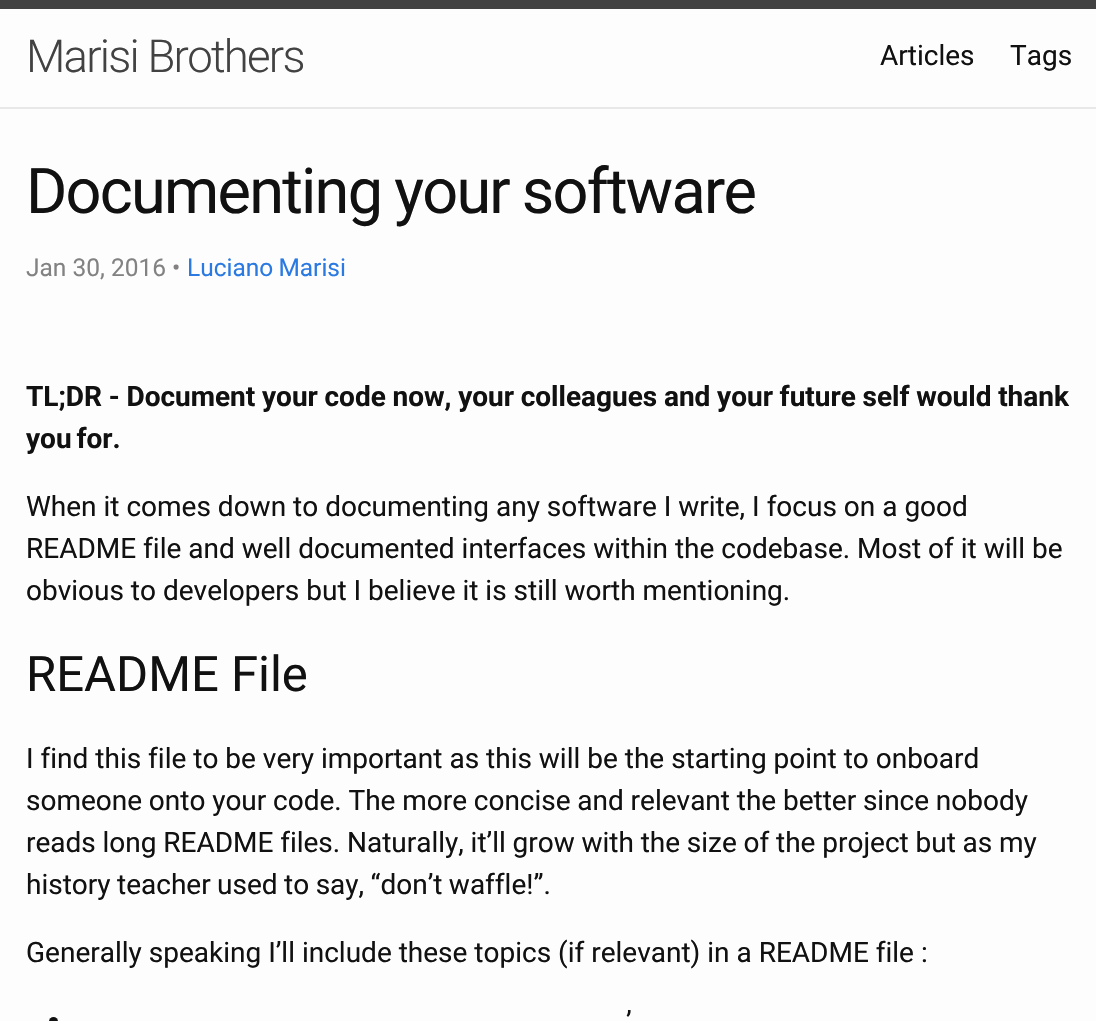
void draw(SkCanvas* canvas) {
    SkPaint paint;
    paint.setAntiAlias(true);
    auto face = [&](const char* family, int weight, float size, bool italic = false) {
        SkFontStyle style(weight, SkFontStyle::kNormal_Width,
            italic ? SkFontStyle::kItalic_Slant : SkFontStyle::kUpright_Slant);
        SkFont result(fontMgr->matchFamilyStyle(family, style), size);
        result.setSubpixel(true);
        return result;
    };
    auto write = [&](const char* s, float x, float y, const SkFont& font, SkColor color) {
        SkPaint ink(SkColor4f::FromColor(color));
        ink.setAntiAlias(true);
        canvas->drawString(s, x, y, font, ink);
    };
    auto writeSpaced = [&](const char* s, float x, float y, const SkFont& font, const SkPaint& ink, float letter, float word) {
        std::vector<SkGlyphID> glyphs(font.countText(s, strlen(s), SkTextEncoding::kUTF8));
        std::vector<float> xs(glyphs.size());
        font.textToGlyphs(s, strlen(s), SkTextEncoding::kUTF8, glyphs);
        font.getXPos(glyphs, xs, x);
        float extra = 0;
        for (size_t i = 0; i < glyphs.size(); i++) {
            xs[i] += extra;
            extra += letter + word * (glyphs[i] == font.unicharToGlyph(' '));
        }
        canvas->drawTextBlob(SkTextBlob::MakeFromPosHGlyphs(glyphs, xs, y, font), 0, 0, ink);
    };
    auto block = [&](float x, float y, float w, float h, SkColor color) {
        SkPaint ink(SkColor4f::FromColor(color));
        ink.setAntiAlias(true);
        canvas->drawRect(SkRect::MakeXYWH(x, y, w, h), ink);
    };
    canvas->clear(SkColorSetRGB(253, 253, 253));
    block(0, 0, 1096, 9, SkColorSetRGB(66, 66, 66));
    block(0, 107, 1096, 2, SkColorSetRGB(232, 232, 232));
    auto kFont1 = face("Roboto", 300, 45.5f);
    paint.setColor(SkColorSetRGB(66, 66, 66));
    writeSpaced("Marisi Brothers", 26, 72, kFont1, paint, -1.75f, 0);
    auto kFont2 = face("Roboto", 400, 28);
    write("Articles", 880, 65, kFont2, SkColorSetRGB(17, 17, 17));
    write("Tags", 1010, 65, kFont2, SkColorSetRGB(17, 17, 17));
    auto kFont3 = face("Roboto", 400, 63);
    paint.setColor(SkColorSetRGB(17, 17, 17));
    writeSpaced("Documenting your software", 26, 213, kFont3, paint, -1.75f, -1);
    auto kFont4 = face("Roboto", 400, 24.5f);
    write("Jan 30, 2016 •", 26, 276, kFont4, SkColorSetRGB(130, 130, 130));
    paint.setColor(SkColorSetRGB(42, 122, 226));
    writeSpaced("Luciano Marisi", 187, 276, kFont4, paint, 0, -1);
    auto kFont5 = face("Roboto", 700, 28);
    paint.setColor(SkColorSetRGB(17, 17, 17));
    writeSpaced("TL;DR - Document your code now, your colleagues and your future self would thank", 26, 406, kFont5, paint, 0, -0.25f);
    writeSpaced("you for.", 26, 448, kFont5, paint, 0, -2);
    write("When it comes down to documenting any software I write, I focus on a good", 26, 516, kFont2, SkColorSetRGB(17, 17, 17));
    write("README file and well documented interfaces within the codebase. Most of it will be", 26, 558, kFont2, SkColorSetRGB(17, 17, 17));
    write("obvious to developers but I believe it is still worth mentioning.", 26, 600, kFont2, SkColorSetRGB(17, 17, 17));
    auto kFont6 = face("Roboto", 400, 49);
    write("README File", 26, 691, kFont6, SkColorSetRGB(17, 17, 17));
    write("I find this file to be very important as this will be the starting point to onboard", 26, 768, kFont2, SkColorSetRGB(17, 17, 17));
    writeSpaced("someone onto your code. The more concise and relevant the better since nobody", 26, 810, kFont2, paint, 0, -0.2f);
    writeSpaced("reads long README files. Naturally, it’ll grow with the size of the project but as my", 26, 852, kFont2, paint, 0, -0.2f);
    writeSpaced("history teacher used to say, “don’t waffle!”.", 26, 894, kFont2, paint, 0, -0.5f);
    write("Generally speaking I’ll include these topics (if relevant) in a README file :", 26, 962, kFont2, SkColorSetRGB(17, 17, 17));
    write("’", 626, 1031, kFont2, SkColorSetRGB(17, 17, 17));
    canvas->drawCircle(53.5f, 1021.5f, 4.5f, paint);
}
